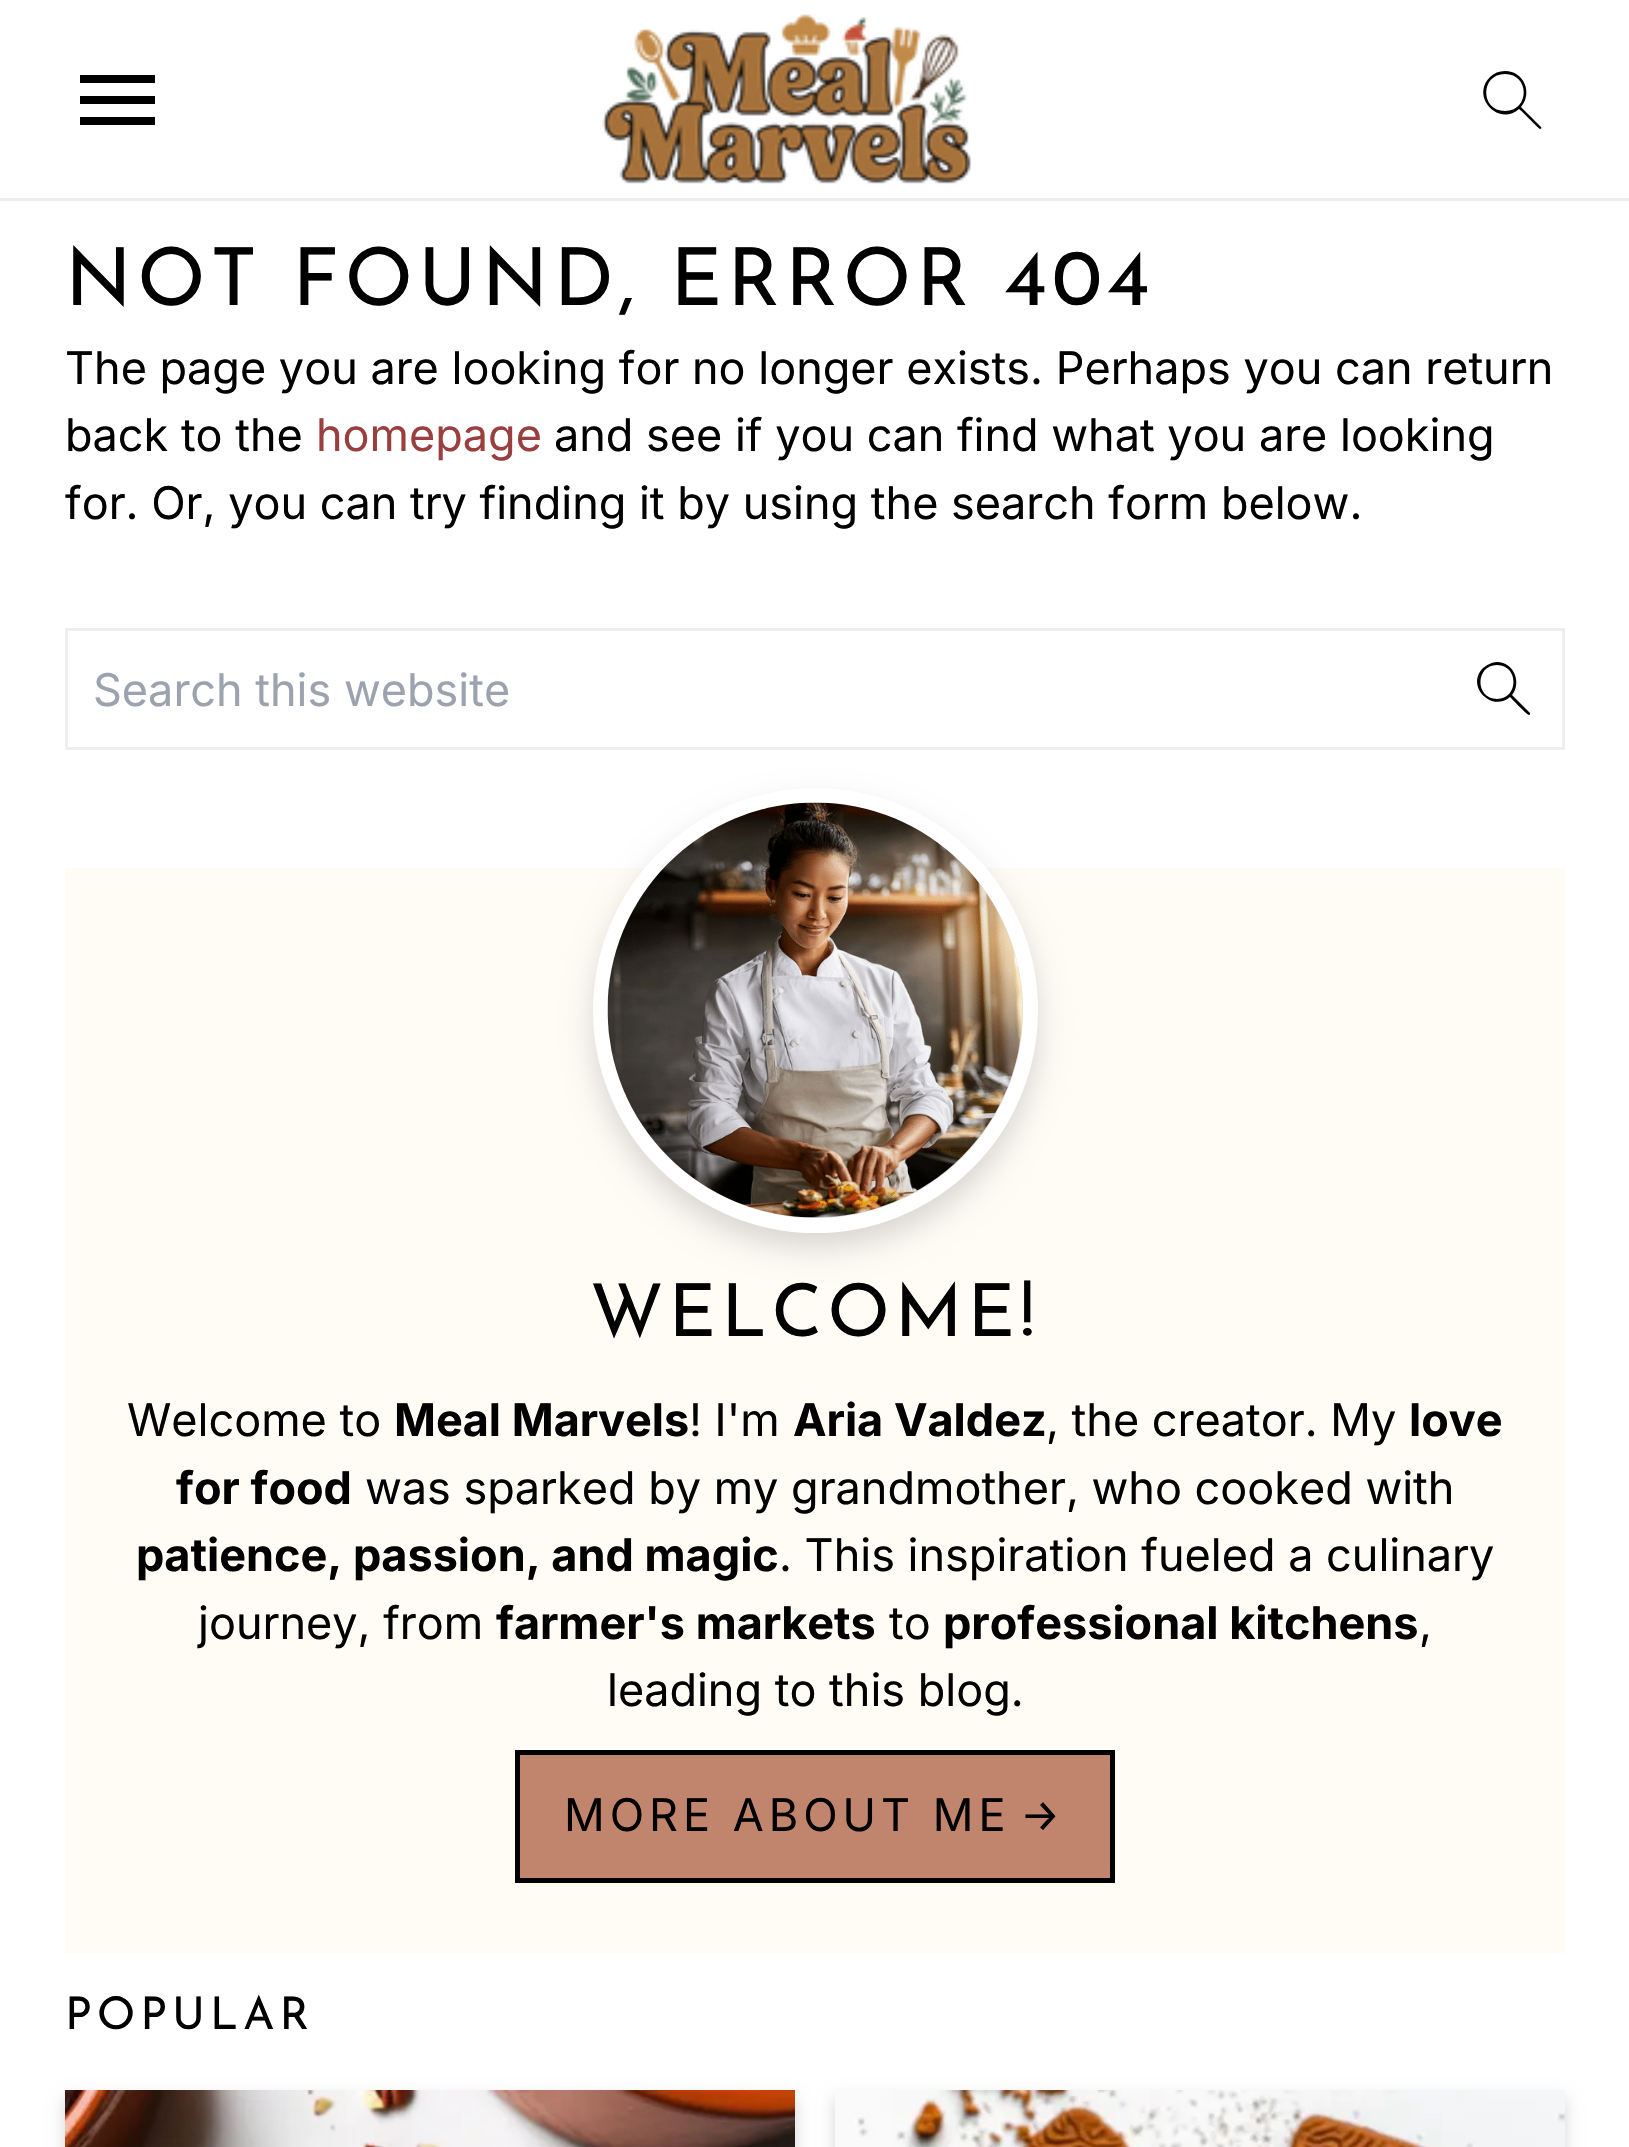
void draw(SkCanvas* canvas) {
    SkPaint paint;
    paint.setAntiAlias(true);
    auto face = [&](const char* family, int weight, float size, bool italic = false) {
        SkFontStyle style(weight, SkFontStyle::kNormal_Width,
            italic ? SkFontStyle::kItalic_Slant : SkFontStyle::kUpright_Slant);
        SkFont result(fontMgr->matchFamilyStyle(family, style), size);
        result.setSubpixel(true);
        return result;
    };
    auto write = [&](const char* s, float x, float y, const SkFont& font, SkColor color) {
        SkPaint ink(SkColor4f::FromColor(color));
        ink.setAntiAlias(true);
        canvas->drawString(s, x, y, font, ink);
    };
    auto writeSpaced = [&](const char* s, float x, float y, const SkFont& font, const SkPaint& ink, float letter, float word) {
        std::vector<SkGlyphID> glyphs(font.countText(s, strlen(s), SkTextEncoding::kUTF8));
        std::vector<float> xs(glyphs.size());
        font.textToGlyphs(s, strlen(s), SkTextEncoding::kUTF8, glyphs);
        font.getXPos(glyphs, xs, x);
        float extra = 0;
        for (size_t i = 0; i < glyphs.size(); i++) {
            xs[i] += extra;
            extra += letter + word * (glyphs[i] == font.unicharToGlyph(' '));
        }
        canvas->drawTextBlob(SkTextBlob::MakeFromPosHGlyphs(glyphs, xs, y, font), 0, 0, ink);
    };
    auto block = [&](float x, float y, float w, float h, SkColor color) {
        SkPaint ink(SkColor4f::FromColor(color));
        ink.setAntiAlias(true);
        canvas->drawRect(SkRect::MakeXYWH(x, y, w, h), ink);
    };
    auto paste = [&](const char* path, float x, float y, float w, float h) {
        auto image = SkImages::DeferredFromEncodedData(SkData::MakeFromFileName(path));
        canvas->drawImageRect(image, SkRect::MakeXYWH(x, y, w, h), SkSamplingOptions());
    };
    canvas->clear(SK_ColorWHITE);
    block(0, 198, 1629, 3, SkColorSetRGB(237, 237, 237));
    paint.setColor(SK_ColorBLACK);
    canvas->drawPath(SkPathBuilder().moveTo(80, 125).lineTo(155, 125).lineTo(155, 117).lineTo(80, 117).close().moveTo(80, 104).lineTo(155, 104).lineTo(155, 96).lineTo(80, 96).close().moveTo(80, 75).lineTo(80, 83).lineTo(155, 83).lineTo(155, 75).close().detach(), paint);
    paste("pic1.png", 602, 14, 369, 170);
    canvas->drawPath(SkPathBuilder().moveTo(1505, 71).cubicTo(1499, 71, 1494, 73, 1490, 77).cubicTo(1470, 97, 1499, 127, 1519, 109).cubicTo(1522, 111, 1539, 129, 1540, 129).cubicTo(1541, 129, 1542, 128, 1541, 127).lineTo(1521, 107).cubicTo(1533, 93, 1524, 71, 1505, 71).close().moveTo(1505, 74).cubicTo(1530, 74, 1530, 111, 1505, 111).cubicTo(1480, 111, 1480, 74, 1505, 74).close().detach(), paint);
    auto kFont1 = face("Josefin Sans", 100, 80);
    paint.setColor(SkColorSetRGB(1, 1, 1));
    writeSpaced("NOT FOUND, ERROR 404", 65, 305, kFont1, paint, 5, 0);
    auto kFont2 = face("Inter", 400, 45);
    write("The page you are looking for no longer exists. Perhaps you can return", 65, 384, kFont2, SkColorSetRGB(1, 1, 1));
    write("back to the", 65, 451, kFont2, SkColorSetRGB(1, 1, 1));
    write("homepage", 316, 451, kFont2, SkColorSetRGB(154, 63, 63));
    write("and see if you can find what you are looking", 554, 451, kFont2, SkColorSetRGB(1, 1, 1));
    write("for. Or, you can try finding it by using the search form below.", 65, 519, kFont2, SkColorSetRGB(1, 1, 1));
    paint.setStyle(SkPaint::kStroke_Style);
    paint.setStrokeWidth(3);
    paint.setColor(SkColorSetRGB(238, 238, 238));
    canvas->drawRect(SkRect::MakeXYWH(66.5f, 629.5f, 1497, 119), paint);
    paint.setStyle(SkPaint::kFill_Style);
    paint.setColor(SK_ColorBLACK);
    canvas->drawPath(SkPathBuilder().moveTo(1497, 662).cubicTo(1492, 662, 1487, 665, 1483, 668).cubicTo(1465, 686, 1492, 713, 1510, 697).cubicTo(1512, 699, 1527, 715, 1529, 715).cubicTo(1530, 715, 1530, 714, 1530, 713).lineTo(1512, 695).cubicTo(1522, 683, 1514, 662, 1497, 662).close().moveTo(1497, 665).cubicTo(1519, 665, 1519, 699, 1497, 699).cubicTo(1475, 699, 1475, 665, 1497, 665).close().detach(), paint);
    write("Search this website", 93, 706, kFont2, SkColorSetRGB(156, 163, 175));
    block(65, 868, 1500, 1085, SkColorSetRGB(255, 251, 245));
    paint.setColor(SkColorSetARGB(38, 0, 0, 0));
    paint.setMaskFilter(SkMaskFilter::MakeBlur(kNormal_SkBlurStyle, 15));
    canvas->drawRoundRect(SkRect::MakeXYWH(593, 803, 445, 445), 222.5f, 222.5f, paint);
    paint.setMaskFilter(nullptr);
    paint.setStyle(SkPaint::kStroke_Style);
    paint.setStrokeWidth(15);
    paint.setColor(SK_ColorWHITE);
    canvas->drawCircle(815.5f, 1010.5f, 215, paint);
    paste("pic2.png", 607, 802, 416, 416);
    auto kFont3 = face("Josefin Sans", 100, 73);
    paint.setStyle(SkPaint::kFill_Style);
    paint.setColor(SkColorSetRGB(1, 1, 1));
    writeSpaced("WELCOME!", 590, 1336, kFont3, paint, 5, 0);
    write("Welcome to", 127, 1436, kFont2, SkColorSetRGB(1, 1, 1));
    auto kFont4 = face("Inter", 700, 45);
    write("Meal Marvels", 394, 1436, kFont4, SkColorSetRGB(1, 1, 1));
    write("! I'm", 689, 1436, kFont2, SkColorSetRGB(1, 1, 1));
    write("Aria Valdez", 793, 1436, kFont4, SkColorSetRGB(1, 1, 1));
    write(", the creator. My", 1046, 1436, kFont2, SkColorSetRGB(1, 1, 1));
    write("love", 1409, 1436, kFont4, SkColorSetRGB(1, 1, 1));
    write("for food", 176, 1504, kFont4, SkColorSetRGB(1, 1, 1));
    write("was sparked by my grandmother, who cooked with", 365, 1504, kFont2, SkColorSetRGB(1, 1, 1));
    write("patience, passion, and magic", 136, 1571, kFont4, SkColorSetRGB(1, 1, 1));
    write(". This inspiration fueled a culinary", 779, 1571, kFont2, SkColorSetRGB(1, 1, 1));
    write("journey, from", 198, 1639, kFont2, SkColorSetRGB(1, 1, 1));
    write("farmer's markets", 496, 1639, kFont4, SkColorSetRGB(1, 1, 1));
    write("to", 889, 1639, kFont2, SkColorSetRGB(1, 1, 1));
    write("professional kitchens", 943, 1639, kFont4, SkColorSetRGB(1, 1, 1));
    write(",", 1419, 1639, kFont2, SkColorSetRGB(1, 1, 1));
    write("leading to this blog.", 607, 1706, kFont2, SkColorSetRGB(1, 1, 1));
    paint.setColor(SkColorSetRGB(193, 133, 109));
    canvas->drawRect(SkRect::MakeXYWH(517.5f, 1752.5f, 595, 128), paint);
    paint.setStyle(SkPaint::kStroke_Style);
    paint.setStrokeWidth(5);
    paint.setColor(SK_ColorBLACK);
    canvas->drawRect(SkRect::MakeXYWH(517.5f, 1752.5f, 595, 128), paint);
    paint.setStyle(SkPaint::kFill_Style);
    paint.setColor(SkColorSetRGB(1, 1, 1));
    writeSpaced("MORE ABOUT ME", 564, 1831, kFont2, paint, 5, 0);
    auto kFont5 = face("Fira Sans", 400, 45);
    writeSpaced("→", 1020, 1831, kFont5, paint, 5, 0);
    auto kFont6 = face("Josefin Sans", 100, 45);
    writeSpaced("POPULAR", 65, 2029, kFont6, paint, 5, 0);
    paint.setColor(SkColorSetARGB(41, 0, 0, 0));
    paint.setMaskFilter(SkMaskFilter::MakeBlur(kNormal_SkBlurStyle, 7.5f));
    canvas->drawRect(SkRect::MakeXYWH(65, 2098, 730, 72), paint);
    paint.setMaskFilter(nullptr);
    paste("pic3.png", 65, 2090, 730, 57);
    paint.setMaskFilter(SkMaskFilter::MakeBlur(kNormal_SkBlurStyle, 7.5f));
    canvas->drawRect(SkRect::MakeXYWH(835, 2098, 730, 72), paint);
    paint.setMaskFilter(nullptr);
    paste("pic4.png", 835, 2090, 730, 57);
}
